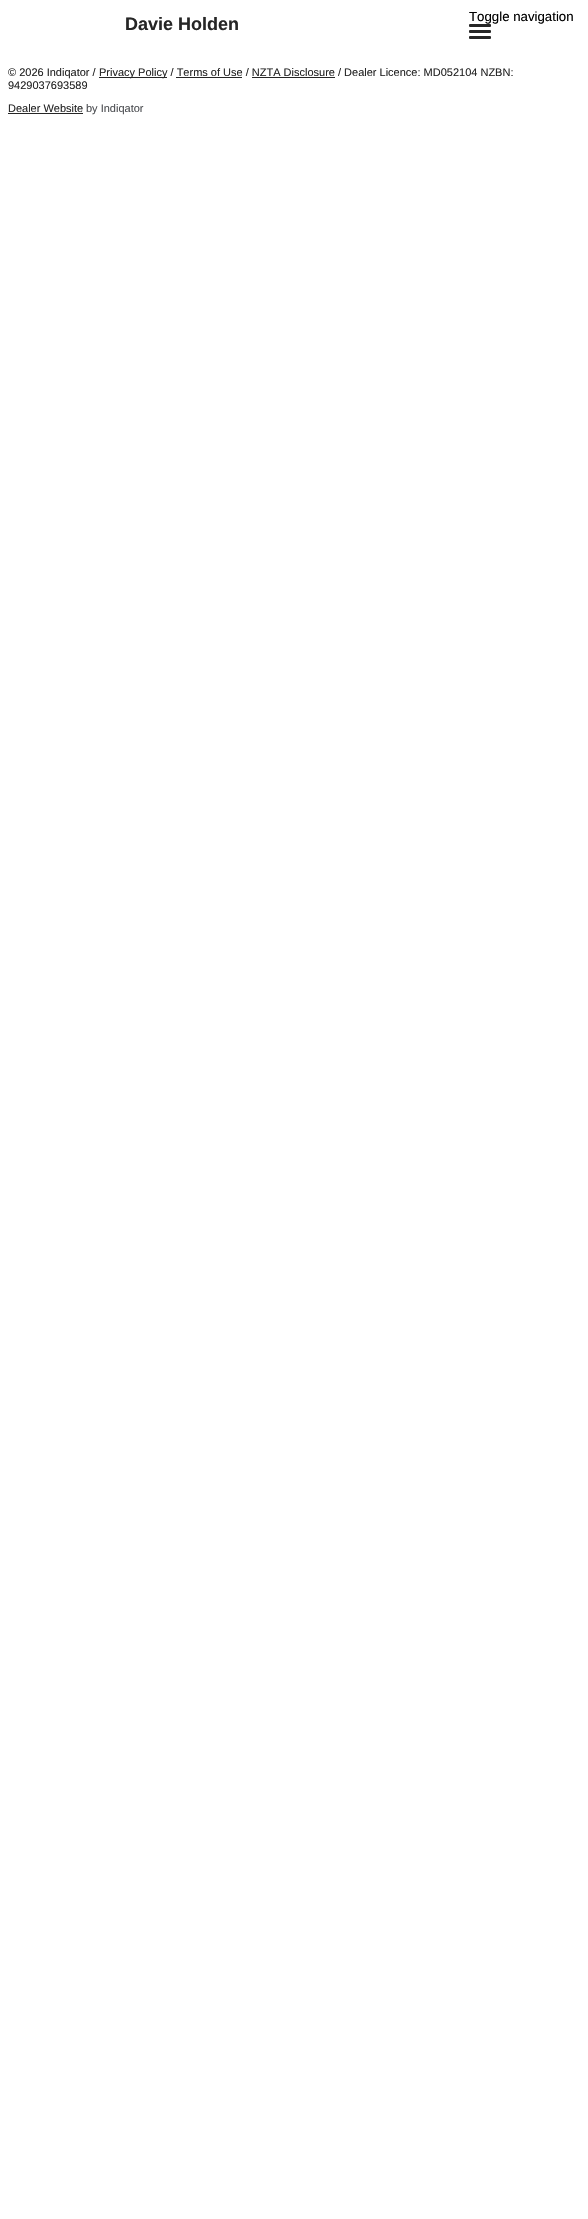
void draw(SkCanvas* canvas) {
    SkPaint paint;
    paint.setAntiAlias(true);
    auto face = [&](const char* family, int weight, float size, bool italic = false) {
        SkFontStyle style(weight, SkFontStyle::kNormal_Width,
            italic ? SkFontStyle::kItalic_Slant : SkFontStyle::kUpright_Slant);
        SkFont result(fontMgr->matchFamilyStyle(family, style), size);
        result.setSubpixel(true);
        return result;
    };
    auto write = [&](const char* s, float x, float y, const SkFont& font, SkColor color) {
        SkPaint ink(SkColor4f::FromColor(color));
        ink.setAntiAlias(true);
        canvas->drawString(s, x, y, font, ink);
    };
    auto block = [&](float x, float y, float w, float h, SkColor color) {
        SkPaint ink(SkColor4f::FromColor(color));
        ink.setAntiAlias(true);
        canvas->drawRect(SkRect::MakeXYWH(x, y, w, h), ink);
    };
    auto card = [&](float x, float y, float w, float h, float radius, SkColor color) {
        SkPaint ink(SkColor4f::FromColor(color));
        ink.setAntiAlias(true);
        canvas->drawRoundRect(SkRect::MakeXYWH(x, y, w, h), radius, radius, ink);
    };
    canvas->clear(SK_ColorWHITE);
    auto kFont1 = face("Liberation Sans", 700, 18);
    write("Davie Holden", 125, 30, kFont1, SkColorSetRGB(38, 38, 38));
    auto kFont2 = face("Liberation Sans", 400, 13.25f);
    write("Toggle navigation", 469, 21, kFont2, SK_ColorBLACK);
    card(469, 24, 22, 3, 1, SkColorSetRGB(38, 38, 38));
    card(469, 30, 22, 3, 1, SkColorSetRGB(38, 38, 38));
    card(469, 36, 22, 3, 1, SkColorSetRGB(38, 38, 38));
    auto kFont3 = face("Liberation Sans", 400, 11);
    write("© 2026 Indiqator /", 8, 76, kFont3, SkColorSetRGB(38, 38, 38));
    block(99, 77, 68, 1, SkColorSetRGB(38, 38, 38));
    write("Privacy Policy / Terms of Use / NZTA Disclosure / Dealer Licence: MD052104 NZBN:", 99, 76, kFont3, SkColorSetRGB(38, 38, 38));
    block(176, 77, 66, 1, SkColorSetRGB(38, 38, 38));
    block(252, 77, 83, 1, SkColorSetRGB(38, 38, 38));
    write("9429037693589", 8, 89, kFont3, SkColorSetRGB(38, 38, 38));
    write("Dealer Website", 8, 112, kFont3, SkColorSetRGB(38, 38, 38));
    block(8, 113, 75, 1, SkColorSetRGB(38, 38, 38));
    write("by Indiqator", 86, 112, kFont3, SkColorSetRGB(77, 79, 83));
}
